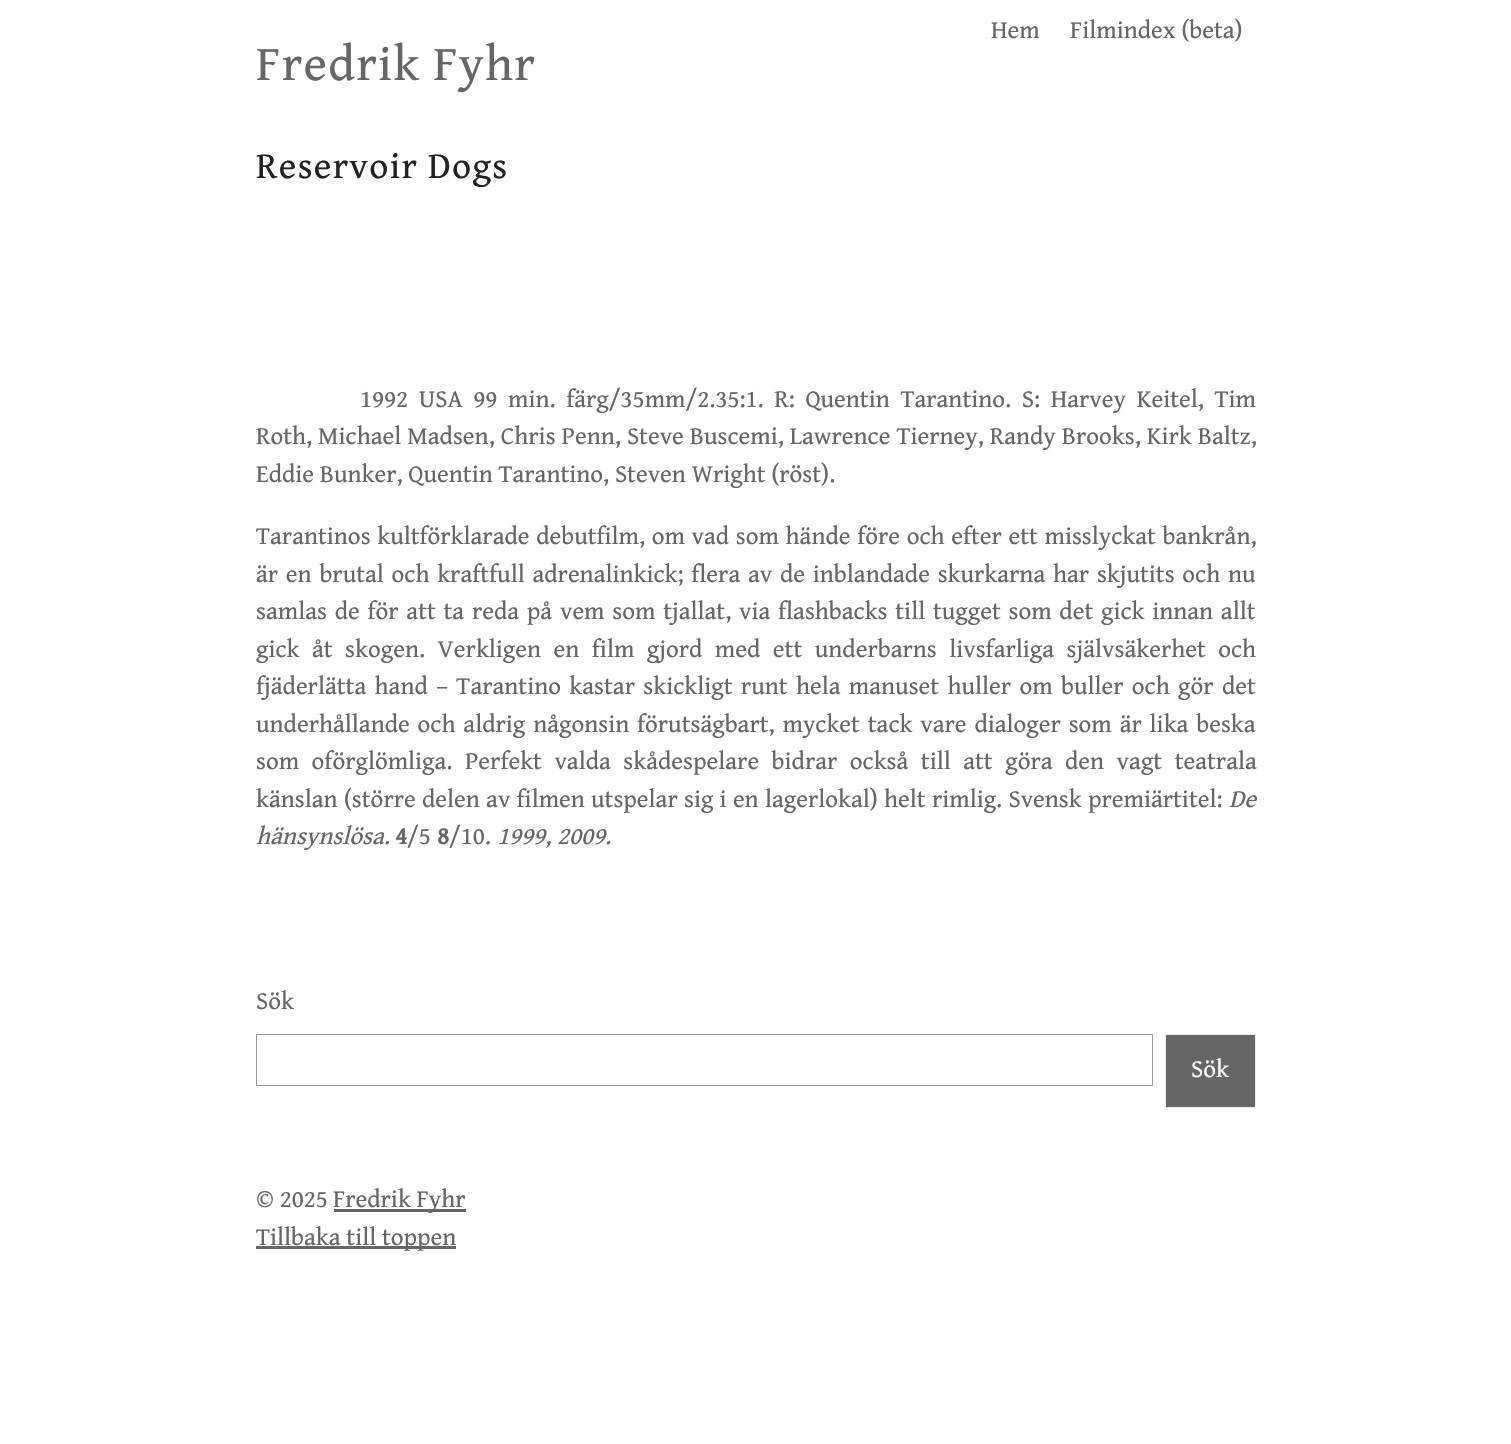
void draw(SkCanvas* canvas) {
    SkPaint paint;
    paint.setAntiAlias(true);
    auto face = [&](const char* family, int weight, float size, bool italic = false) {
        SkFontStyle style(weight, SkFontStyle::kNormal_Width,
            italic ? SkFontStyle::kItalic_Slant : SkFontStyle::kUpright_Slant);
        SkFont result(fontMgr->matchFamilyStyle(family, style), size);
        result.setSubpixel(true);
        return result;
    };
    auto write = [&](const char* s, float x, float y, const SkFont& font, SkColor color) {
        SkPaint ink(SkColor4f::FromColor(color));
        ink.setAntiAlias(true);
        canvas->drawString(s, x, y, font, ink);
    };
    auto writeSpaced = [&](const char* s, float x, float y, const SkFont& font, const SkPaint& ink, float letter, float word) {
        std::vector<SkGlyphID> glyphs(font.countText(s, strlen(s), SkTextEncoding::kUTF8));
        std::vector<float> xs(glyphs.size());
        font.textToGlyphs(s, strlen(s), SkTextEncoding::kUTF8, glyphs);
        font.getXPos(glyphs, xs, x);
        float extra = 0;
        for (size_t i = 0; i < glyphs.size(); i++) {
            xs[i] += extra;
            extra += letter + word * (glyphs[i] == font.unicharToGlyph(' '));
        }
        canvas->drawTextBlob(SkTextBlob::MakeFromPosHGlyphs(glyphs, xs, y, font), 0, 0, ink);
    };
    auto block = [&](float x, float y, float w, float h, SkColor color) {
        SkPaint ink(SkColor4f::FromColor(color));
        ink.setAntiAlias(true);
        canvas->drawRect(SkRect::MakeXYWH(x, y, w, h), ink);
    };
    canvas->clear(SK_ColorWHITE);
    auto kFont1 = face("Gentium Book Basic", 400, 25);
    write("Hem", 991, 38, kFont1, SkColorSetRGB(102, 102, 102));
    write("Filmindex (beta)", 1070, 38, kFont1, SkColorSetRGB(102, 102, 102));
    auto kFont2 = face("Gentium Book Basic", 400, 50);
    paint.setColor(SkColorSetRGB(102, 102, 102));
    writeSpaced("Fredrik Fyhr", 256, 80, kFont2, paint, 1.25f, 0);
    auto kFont3 = face("Gentium Book Basic", 400, 37.5f);
    paint.setColor(SkColorSetRGB(34, 34, 34));
    writeSpaced("Reservoir Dogs", 256, 178, kFont3, paint, 1.25f, 0);
    paint.setColor(SkColorSetRGB(102, 102, 102));
    writeSpaced("1992 USA 99 min. färg/35mm/2.35:1. R: Quentin Tarantino. S: Harvey Keitel, Tim", 360, 407, kFont1, paint, 0, 4.9f);
    writeSpaced("Roth, Michael Madsen, Chris Penn, Steve Buscemi, Lawrence Tierney, Randy Brooks, Kirk Baltz,", 256, 444, kFont1, paint, 0, 0.25f);
    write("Eddie Bunker, Quentin Tarantino, Steven Wright (röst).", 256, 482, kFont1, SkColorSetRGB(102, 102, 102));
    writeSpaced("Tarantinos kultförklarade debutfilm, om vad som hände före och efter ett misslyckat bankrån,", 256, 544, kFont1, paint, 0, 0.9f);
    writeSpaced("är en brutal och kraftfull adrenalinkick; flera av de inblandade skurkarna har skjutits och nu", 256, 582, kFont1, paint, 0, 2);
    writeSpaced("samlas de för att ta reda på vem som tjallat, via flashbacks till tugget som det gick innan allt", 256, 619, kFont1, paint, 0, 2);
    writeSpaced("gick åt skogen. Verkligen en film gjord med ett underbarns livsfarliga självsäkerhet och", 256, 657, kFont1, paint, 0, 6.75f);
    writeSpaced("fjäderlätta hand – Tarantino kastar skickligt runt hela manuset huller om buller och gör det", 256, 694, kFont1, paint, 0, 2.6f);
    writeSpaced("underhållande och aldrig någonsin förutsägbart, mycket tack vare dialoger som är lika beska", 256, 732, kFont1, paint, 0, 2.1f);
    writeSpaced("som oförglömliga. Perfekt valda skådespelare bidrar också till att göra den vagt teatrala", 256, 769, kFont1, paint, 0, 6.75f);
    writeSpaced("känslan (större delen av filmen utspelar sig i en lagerlokal) helt rimlig. Svensk premiärtitel:", 256, 807, kFont1, paint, 0, 0.5f);
    auto kFont4 = face("Gentium Book Basic", 400, 25, true);
    write("De", 1229, 807, kFont4, SkColorSetRGB(102, 102, 102));
    write("hänsynslösa.", 256, 844, kFont4, SkColorSetRGB(102, 102, 102));
    auto kFont5 = face("Gentium Book Basic", 700, 25);
    write("4", 395, 844, kFont5, SkColorSetRGB(102, 102, 102));
    write("/5", 407, 844, kFont1, SkColorSetRGB(102, 102, 102));
    write("8", 437, 844, kFont5, SkColorSetRGB(102, 102, 102));
    write("/10.", 449, 844, kFont1, SkColorSetRGB(102, 102, 102));
    write("1999, 2009.", 497, 844, kFont4, SkColorSetRGB(102, 102, 102));
    write("Sök", 256, 1009, kFont1, SkColorSetRGB(102, 102, 102));
    paint.setStyle(SkPaint::kStroke_Style);
    paint.setStrokeWidth(1);
    paint.setColor(SkColorSetRGB(153, 153, 153));
    canvas->drawRect(SkRect::MakeXYWH(256.5f, 1034.5f, 896, 51), paint);
    paint.setStyle(SkPaint::kFill_Style);
    paint.setColor(SkColorSetRGB(102, 102, 102));
    canvas->drawRect(SkRect::MakeXYWH(1165.5f, 1034.5f, 90, 73), paint);
    paint.setStyle(SkPaint::kStroke_Style);
    paint.setColor(SkColorSetRGB(238, 238, 238));
    canvas->drawRect(SkRect::MakeXYWH(1165.5f, 1034.5f, 90, 73), paint);
    write("Sök", 1191, 1077, kFont1, SK_ColorWHITE);
    write("© 2025", 256, 1207, kFont1, SkColorSetRGB(102, 102, 102));
    block(334, 1209, 132, 3, SkColorSetRGB(102, 102, 102));
    write("Fredrik Fyhr", 333, 1207, kFont1, SkColorSetRGB(102, 102, 102));
    block(256, 1246, 200, 3, SkColorSetRGB(102, 102, 102));
    write("Tillbaka till toppen", 256, 1245, kFont1, SkColorSetRGB(102, 102, 102));
}
